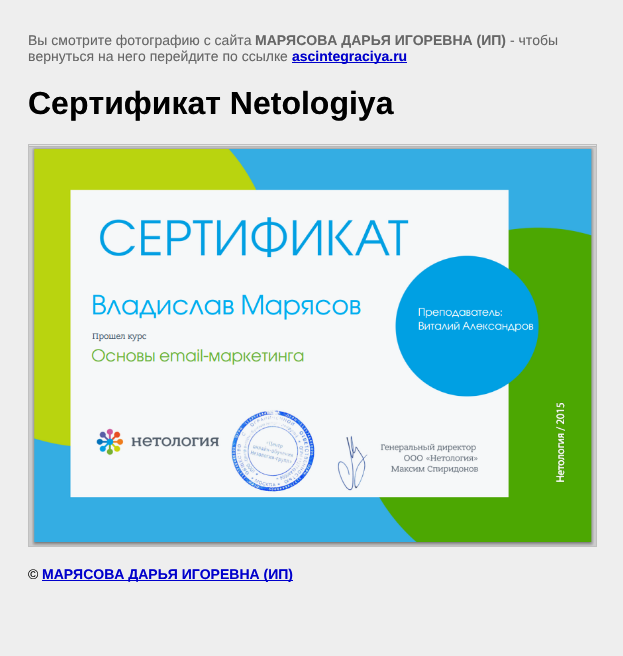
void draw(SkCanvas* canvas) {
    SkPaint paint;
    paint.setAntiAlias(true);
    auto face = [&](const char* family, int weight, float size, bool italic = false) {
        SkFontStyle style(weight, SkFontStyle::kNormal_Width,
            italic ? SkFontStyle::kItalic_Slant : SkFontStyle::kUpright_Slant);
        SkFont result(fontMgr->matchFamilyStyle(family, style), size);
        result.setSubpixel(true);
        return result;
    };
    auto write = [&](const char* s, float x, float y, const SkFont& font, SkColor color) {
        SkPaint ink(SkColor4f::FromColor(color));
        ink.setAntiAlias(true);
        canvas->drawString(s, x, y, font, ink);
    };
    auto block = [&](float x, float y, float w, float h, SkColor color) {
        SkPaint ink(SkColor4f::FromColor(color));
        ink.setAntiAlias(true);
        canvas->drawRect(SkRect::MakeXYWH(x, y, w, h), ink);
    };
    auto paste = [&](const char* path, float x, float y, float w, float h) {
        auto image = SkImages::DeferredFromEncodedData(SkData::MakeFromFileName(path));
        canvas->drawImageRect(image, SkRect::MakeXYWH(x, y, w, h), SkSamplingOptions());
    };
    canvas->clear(SkColorSetRGB(238, 238, 238));
    auto kFont1 = face("Liberation Sans", 400, 14);
    write("Вы смотрите фотографию с сайта", 28, 45, kFont1, SkColorSetRGB(102, 102, 102));
    auto kFont2 = face("Liberation Sans", 700, 14);
    write("МАРЯСОВА ДАРЬЯ ИГОРЕВНА (ИП)", 255, 45, kFont2, SkColorSetRGB(102, 102, 102));
    write("- чтобы", 510, 45, kFont1, SkColorSetRGB(102, 102, 102));
    write("вернуться на него перейдите по ссылке", 28, 61, kFont1, SkColorSetRGB(102, 102, 102));
    block(292, 62, 115, 1, SkColorSetRGB(0, 0, 204));
    write("ascintegraciya.ru", 292, 61, kFont2, SkColorSetRGB(0, 0, 204));
    auto kFont3 = face("Liberation Sans", 700, 32);
    write("Сертификат Netologiya", 28, 114, kFont3, SK_ColorBLACK);
    paint.setStyle(SkPaint::kStroke_Style);
    paint.setStrokeWidth(1);
    paint.setColor(SkColorSetRGB(192, 192, 192));
    canvas->drawRect(SkRect::MakeXYWH(28.5f, 144.5f, 568, 402), paint);
    paste("pic1.png", 29, 145, 567, 401);
    write("©", 28, 579, kFont1, SK_ColorBLACK);
    block(42, 580, 251, 1, SkColorSetRGB(0, 0, 204));
    write("МАРЯСОВА ДАРЬЯ ИГОРЕВНА (ИП)", 42, 579, kFont2, SkColorSetRGB(0, 0, 204));
}
